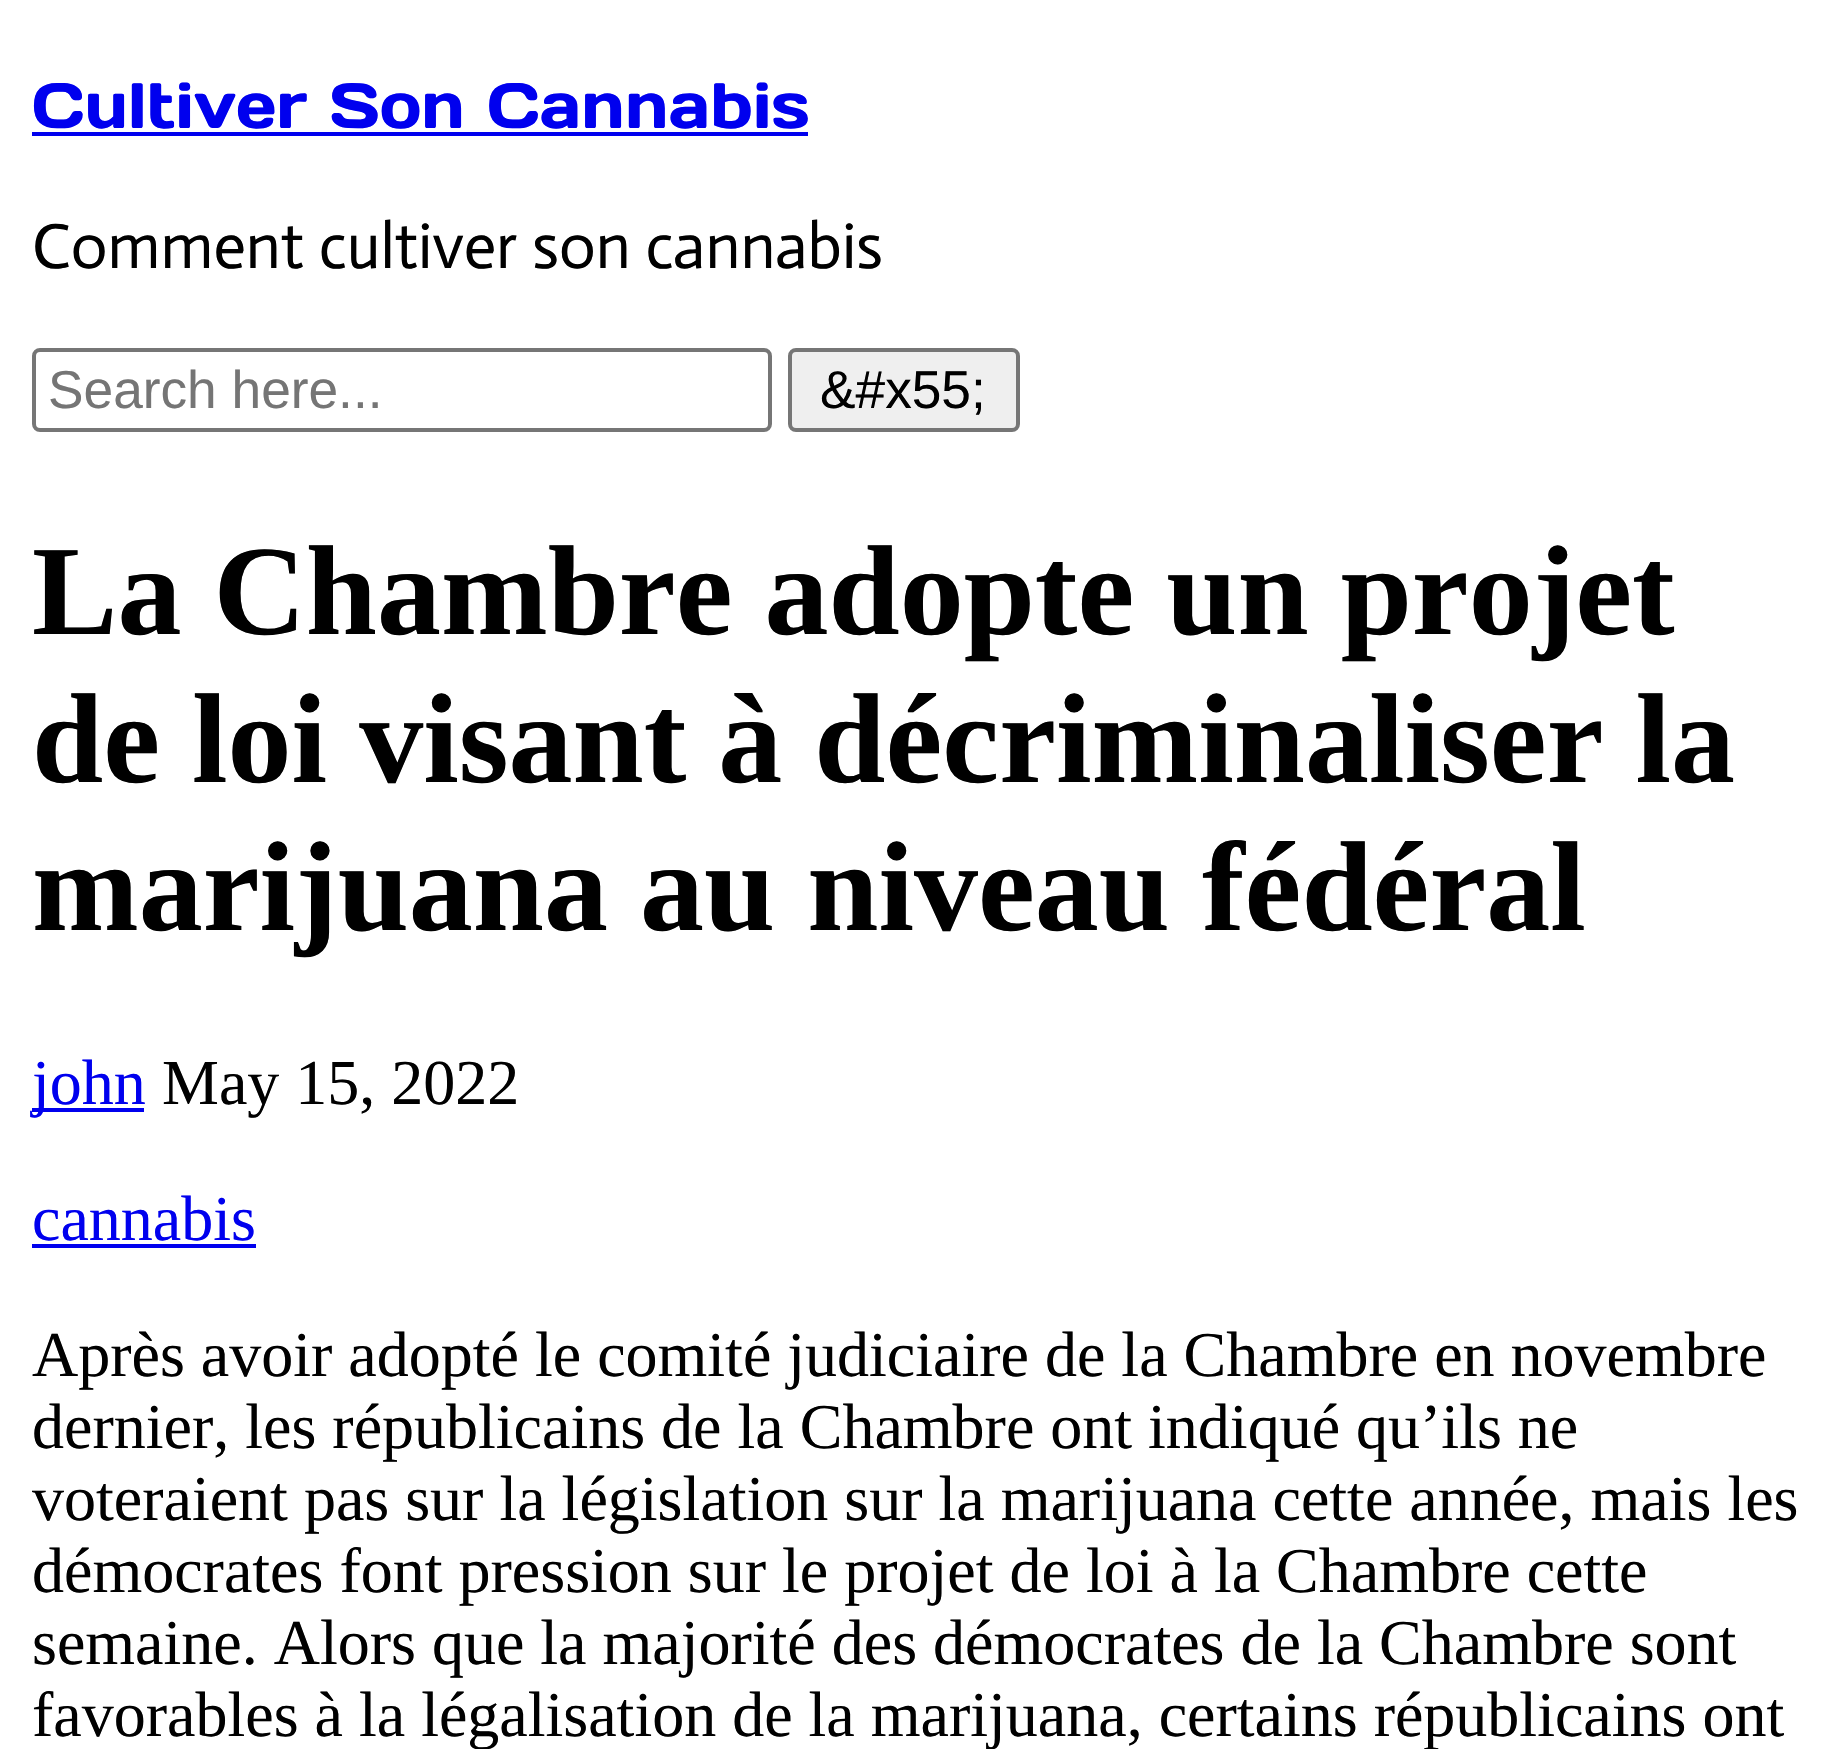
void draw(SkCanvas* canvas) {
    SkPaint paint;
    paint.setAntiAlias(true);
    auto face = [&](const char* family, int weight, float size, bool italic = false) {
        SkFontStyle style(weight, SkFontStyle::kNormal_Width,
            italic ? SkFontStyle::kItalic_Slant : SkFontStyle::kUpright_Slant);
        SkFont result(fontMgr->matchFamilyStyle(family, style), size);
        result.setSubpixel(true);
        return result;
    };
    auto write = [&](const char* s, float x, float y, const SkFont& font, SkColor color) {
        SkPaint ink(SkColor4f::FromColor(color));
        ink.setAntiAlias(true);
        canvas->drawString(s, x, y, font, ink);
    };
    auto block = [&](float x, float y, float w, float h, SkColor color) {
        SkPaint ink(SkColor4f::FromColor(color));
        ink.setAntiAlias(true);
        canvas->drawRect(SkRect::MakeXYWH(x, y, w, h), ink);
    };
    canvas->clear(SK_ColorWHITE);
    auto kFont1 = face("Days One", 400, 64);
    write("Cultiver Son Cannabis", 32, 128, kFont1, SkColorSetRGB(0, 0, 238));
    block(32, 132, 776, 4, SkColorSetRGB(0, 0, 238));
    auto kFont2 = face("Actor", 400, 64);
    write("Comment cultiver son cannabis", 32, 268, kFont2, SK_ColorBLACK);
    paint.setStyle(SkPaint::kStroke_Style);
    paint.setStrokeWidth(4);
    paint.setColor(SkColorSetRGB(118, 118, 118));
    canvas->drawRoundRect(SkRect::MakeXYWH(34, 350, 736, 80), 6, 6, paint);
    auto kFont3 = face("Liberation Sans", 400, 53.25f);
    write("Search here...", 48, 408, kFont3, SkColorSetRGB(117, 117, 117));
    paint.setStyle(SkPaint::kFill_Style);
    paint.setColor(SkColorSetRGB(239, 239, 239));
    canvas->drawRoundRect(SkRect::MakeXYWH(790, 350, 228, 80), 6, 6, paint);
    paint.setStyle(SkPaint::kStroke_Style);
    paint.setColor(SkColorSetRGB(118, 118, 118));
    canvas->drawRoundRect(SkRect::MakeXYWH(790, 350, 228, 80), 6, 6, paint);
    write("&#x55;", 820, 408, kFont3, SK_ColorBLACK);
    auto kFont4 = face("Liberation Serif", 700, 128);
    write("La Chambre adopte un projet", 32, 634, kFont4, SK_ColorBLACK);
    write("de loi visant à décriminaliser la", 32, 782, kFont4, SK_ColorBLACK);
    write("marijuana au niveau fédéral", 32, 930, kFont4, SK_ColorBLACK);
    block(32, 1108, 112, 4, SkColorSetRGB(0, 0, 238));
    auto kFont5 = face("Liberation Serif", 400, 64);
    write("john", 32, 1104, kFont5, SkColorSetRGB(0, 0, 238));
    write("May 15, 2022", 162, 1104, kFont5, SK_ColorBLACK);
    write("cannabis", 32, 1240, kFont5, SkColorSetRGB(0, 0, 238));
    block(32, 1244, 224, 4, SkColorSetRGB(0, 0, 238));
    write("Après avoir adopté le comité judiciaire de la Chambre en novembre", 32, 1376, kFont5, SK_ColorBLACK);
    write("dernier, les républicains de la Chambre ont indiqué qu’ils ne", 32, 1448, kFont5, SK_ColorBLACK);
    write("voteraient pas sur la législation sur la marijuana cette année, mais les", 32, 1520, kFont5, SK_ColorBLACK);
    write("démocrates font pression sur le projet de loi à la Chambre cette", 32, 1592, kFont5, SK_ColorBLACK);
    write("semaine. Alors que la majorité des démocrates de la Chambre sont", 32, 1664, kFont5, SK_ColorBLACK);
    write("favorables à la légalisation de la marijuana, certains républicains ont", 32, 1736, kFont5, SK_ColorBLACK);
}
